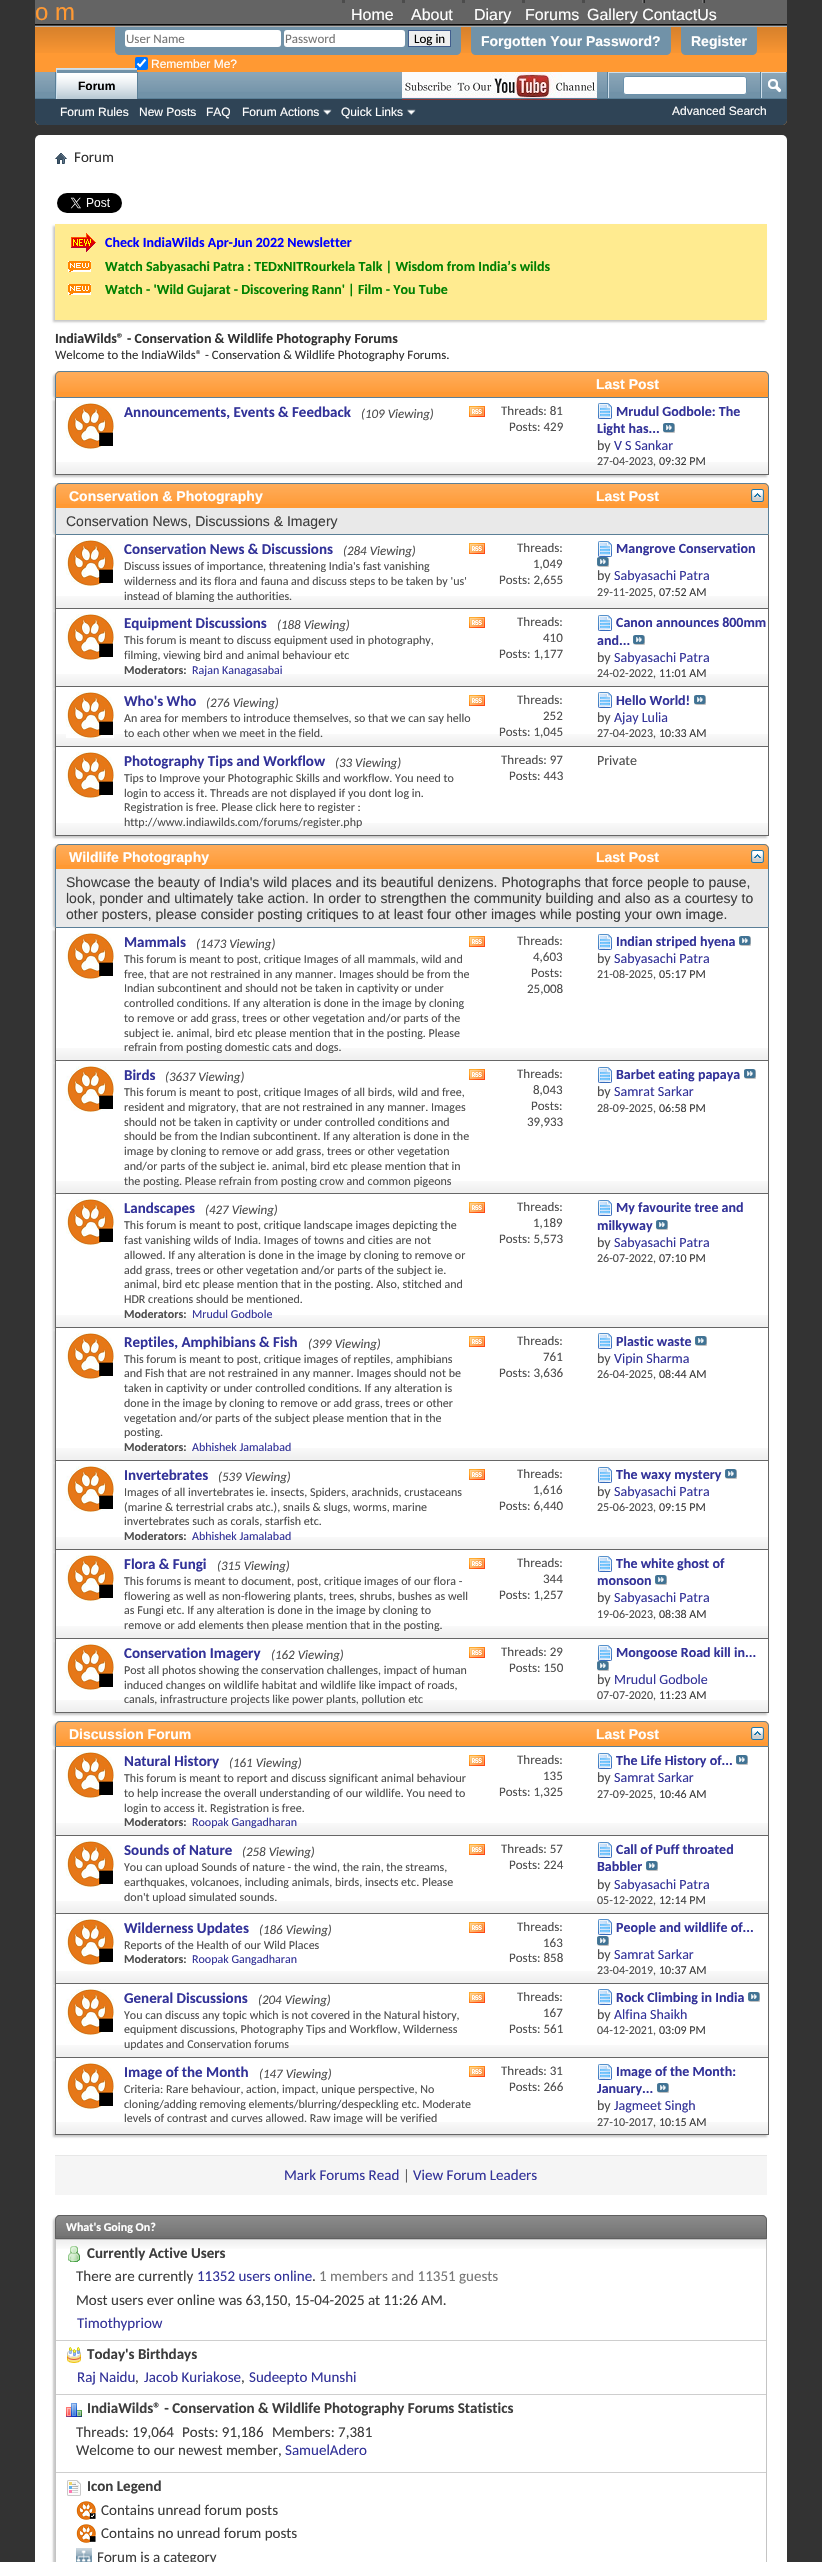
void draw(SkCanvas* canvas) {
    SkPaint paint;
    paint.setAntiAlias(true);
    auto face = [&](const char* family, int weight, float size, bool italic = false) {
        SkFontStyle style(weight, SkFontStyle::kNormal_Width,
            italic ? SkFontStyle::kItalic_Slant : SkFontStyle::kUpright_Slant);
        SkFont result(fontMgr->matchFamilyStyle(family, style), size);
        result.setSubpixel(true);
        return result;
    };
    auto write = [&](const char* s, float x, float y, const SkFont& font, SkColor color) {
        SkPaint ink(SkColor4f::FromColor(color));
        ink.setAntiAlias(true);
        canvas->drawString(s, x, y, font, ink);
    };
    auto block = [&](float x, float y, float w, float h, SkColor color) {
        SkPaint ink(SkColor4f::FromColor(color));
        ink.setAntiAlias(true);
        canvas->drawRect(SkRect::MakeXYWH(x, y, w, h), ink);
    };
    auto card = [&](float x, float y, float w, float h, float radius, SkColor color) {
        SkPaint ink(SkColor4f::FromColor(color));
        ink.setAntiAlias(true);
        canvas->drawRoundRect(SkRect::MakeXYWH(x, y, w, h), radius, radius, ink);
    };
    auto paste = [&](const char* path, float x, float y, float w, float h) {
        auto image = SkImages::DeferredFromEncodedData(SkData::MakeFromFileName(path));
        canvas->drawImageRect(image, SkRect::MakeXYWH(x, y, w, h), SkSamplingOptions());
    };
    canvas->clear(SkColorSetRGB(51, 51, 51));
    paste("pic1.png", 35, 0, 752, 27);
    block(342, 0, 3, 3, SkColorSetRGB(76, 76, 76));
    block(402, 0, 3, 3, SkColorSetRGB(76, 76, 76));
    block(462, 0, 3, 3, SkColorSetRGB(76, 76, 76));
    block(522, 0, 3, 3, SkColorSetRGB(76, 76, 76));
    block(582, 0, 3, 3, SkColorSetRGB(76, 76, 76));
    paste("pic2.png", 642, 0, 63, 3);
    auto kFont1 = face("Liberation Sans", 400, 24);
    write("o m", 35, 20, kFont1, SkColorSetRGB(255, 153, 51));
    auto kFont2 = face("Liberation Sans", 400, 16);
    write("Home", 351, 20, kFont2, SK_ColorWHITE);
    write("About", 411, 20, kFont2, SK_ColorWHITE);
    write("Diary", 474, 20, kFont2, SK_ColorWHITE);
    write("Forums", 525, 20, kFont2, SK_ColorWHITE);
    write("Gallery ContactUs", 587, 20, kFont2, SK_ColorWHITE);
    paint.setColor(SkColorSetRGB(255, 153, 51));
    canvas->drawPath(SkPathBuilder().moveTo(35, 27).lineTo(787, 27).lineTo(787, 120).cubicTo(787, 123, 785, 125, 782, 125).lineTo(40, 125).cubicTo(37, 125, 35, 123, 35, 120).close().detach(), paint);
    paste("pic3.png", 35, 27, 752, 26);
    paint.setColor(SkColorSetRGB(113, 146, 168));
    canvas->drawPath(SkPathBuilder().moveTo(115, 27).lineTo(461, 27).lineTo(461, 50).cubicTo(461, 53, 459, 55, 456, 55).lineTo(120, 55).cubicTo(117, 55, 115, 53, 115, 50).close().detach(), paint);
    card(125, 30, 156, 17, 3, SK_ColorWHITE);
    auto kFont3 = face("Carlito", 400, 13);
    write("User Name", 126, 43, kFont3, SkColorSetRGB(119, 119, 119));
    card(284, 30, 121, 17, 3, SK_ColorWHITE);
    write("Password", 285, 43, kFont3, SkColorSetRGB(119, 119, 119));
    paint.setColor(SkColorSetRGB(239, 239, 239));
    canvas->drawRect(SkRect::MakeXYWH(408.5f, 30.5f, 42, 16), paint);
    paint.setStyle(SkPaint::kStroke_Style);
    paint.setStrokeWidth(1);
    paint.setColor(SkColorSetRGB(65, 93, 141));
    canvas->drawRect(SkRect::MakeXYWH(408.5f, 30.5f, 42, 16), paint);
    write("Log in", 414, 43, kFont3, SK_ColorBLACK);
    card(135, 57, 13, 13, 2, SkColorSetRGB(0, 117, 255));
    paint.setStrokeWidth(2.1f);
    paint.setColor(SK_ColorWHITE);
    canvas->drawPath(SkPathBuilder().moveTo(137.5f, 63.5f).lineTo(140, 66).lineTo(145.5f, 59.5f).detach(), paint);
    auto kFont4 = face("Liberation Sans", 400, 12);
    write("Remember Me?", 151, 68, kFont4, SK_ColorWHITE);
    paint.setStyle(SkPaint::kFill_Style);
    paint.setColor(SkColorSetRGB(113, 146, 168));
    canvas->drawPath(SkPathBuilder().moveTo(471, 27).lineTo(671, 27).lineTo(671, 50).cubicTo(671, 53, 669, 55, 666, 55).lineTo(476, 55).cubicTo(473, 55, 471, 53, 471, 50).close().detach(), paint);
    auto kFont5 = face("Liberation Sans", 700, 14);
    write("Forgotten Your Password?", 481, 46, kFont5, SK_ColorWHITE);
    canvas->drawPath(SkPathBuilder().moveTo(681, 27).lineTo(757, 27).lineTo(757, 50).cubicTo(757, 53, 755, 55, 752, 55).lineTo(686, 55).cubicTo(683, 55, 681, 53, 681, 50).close().detach(), paint);
    write("Register", 691, 46, kFont5, SK_ColorWHITE);
    paint.setColor(SkColorSetRGB(47, 68, 86));
    canvas->drawPath(SkPathBuilder().moveTo(35, 72).lineTo(787, 72).lineTo(787, 120).cubicTo(787, 123, 785, 125, 782, 125).lineTo(40, 125).cubicTo(37, 125, 35, 123, 35, 120).close().detach(), paint);
    block(35, 72, 751, 26, SkColorSetRGB(113, 146, 168));
    paste("pic4.png", 35, 72, 751, 20);
    block(137, 72, 1, 26, SkColorSetRGB(90, 127, 151));
    block(55, 72, 1, 26, SkColorSetRGB(90, 127, 151));
    paste("pic6.png", 402, 72, 195, 28);
    block(35, 98, 752, 1, SkColorSetRGB(90, 127, 151));
    block(57, 69, 80, 30, SkColorSetRGB(113, 146, 168));
    paste("pic5.png", 57, 69, 80, 30);
    block(56, 68, 81, 1, SkColorSetRGB(206, 223, 235));
    block(56, 68, 1, 31, SkColorSetRGB(206, 223, 235));
    auto kFont6 = face("Liberation Sans", 700, 12);
    write("Forum", 78, 90, kFont6, SK_ColorBLACK);
    write("Forum Rules", 60, 116, kFont4, SK_ColorWHITE);
    write("New Posts", 139, 116, kFont4, SK_ColorWHITE);
    write("FAQ", 206, 116, kFont4, SK_ColorWHITE);
    write("Forum Actions", 242, 116, kFont4, SK_ColorWHITE);
    paste("pic7.png", 323, 109, 9, 6);
    write("Quick Links", 341, 116, kFont4, SK_ColorWHITE);
    paste("pic7.png", 407, 109, 9, 6);
    block(607, 72, 1, 26, SkColorSetRGB(90, 127, 151));
    block(608, 72, 152, 1, SkColorSetRGB(206, 223, 235));
    block(608, 72, 1, 26, SkColorSetRGB(206, 223, 235));
    paint.setColor(SK_ColorWHITE);
    canvas->drawRoundRect(SkRect::MakeXYWH(623.5f, 76.5f, 123, 18), 2.5f, 2.5f, paint);
    paint.setStyle(SkPaint::kStroke_Style);
    paint.setStrokeWidth(1);
    paint.setColor(SkColorSetRGB(107, 145, 171));
    canvas->drawRoundRect(SkRect::MakeXYWH(623.5f, 76.5f, 123, 18), 2.5f, 2.5f, paint);
    block(786, 72, 1, 26, SkColorSetRGB(90, 127, 151));
    block(760, 72, 1, 26, SkColorSetRGB(90, 127, 151));
    block(761, 72, 25, 1, SkColorSetRGB(206, 223, 235));
    block(761, 72, 1, 26, SkColorSetRGB(206, 223, 235));
    paste("pic8.png", 768, 79, 13, 14);
    write("Advanced Search", 672, 115, kFont4, SK_ColorWHITE);
    card(35, 135, 752, 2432, 5, SK_ColorWHITE);
    paste("pic9.png", 55, 153, 12, 11);
    auto kFont7 = face("Carlito", 400, 15);
    write("Forum", 74, 162, kFont7, SkColorSetRGB(51, 51, 51));
    paste("pic10.png", 57, 193, 65, 20);
    paint.setStyle(SkPaint::kFill_Style);
    paint.setColor(SkColorSetRGB(200, 200, 200));
    paint.setMaskFilter(SkMaskFilter::MakeBlur(kNormal_SkBlurStyle, 1));
    canvas->drawRect(SkRect::MakeXYWH(53, 226, 712, 96), paint);
    paint.setMaskFilter(nullptr);
    block(55, 224, 712, 96, SkColorSetRGB(255, 235, 144));
    paste("pic11.png", 71, 233, 25, 19);
    auto kFont8 = face("Carlito", 700, 14);
    write("Check IndiaWilds Apr-Jun 2022 Newsletter", 105, 247, kFont8, SkColorSetRGB(0, 0, 255));
    paste("pic12.png", 68, 261, 23, 11);
    write("Watch Sabyasachi Patra : TEDxNITRourkela Talk | Wisdom from India’s wilds", 105, 271, kFont8, SkColorSetRGB(0, 128, 0));
    paste("pic12.png", 68, 284, 23, 11);
    write("Watch - 'Wild Gujarat - Discovering Rann' | Film - You Tube", 105, 294, kFont8, SkColorSetRGB(0, 128, 0));
    write("IndiaWilds® - Conservation & Wildlife Photography Forums", 55, 343, kFont8, SkColorSetRGB(51, 51, 51));
    auto kFont9 = face("Carlito", 400, 12.75f);
    write("Welcome to the IndiaWilds® - Conservation & Wildlife Photography Forums.", 55, 359, kFont9, SkColorSetRGB(51, 51, 51));
    paint.setMaskFilter(SkMaskFilter::MakeBlur(kNormal_SkBlurStyle, 1));
    canvas->drawRoundRect(SkRect::MakeXYWH(53, 373, 714, 27), 5, 5, paint);
    paint.setMaskFilter(nullptr);
    paint.setColor(SkColorSetRGB(255, 153, 51));
    canvas->drawPath(SkPathBuilder().moveTo(60, 371).lineTo(764, 371).cubicTo(767, 371, 769, 373, 769, 376).lineTo(769, 398).lineTo(55, 398).lineTo(55, 376).cubicTo(55, 373, 57, 371, 60, 371).close().detach(), paint);
    paste("pic13.png", 55, 372, 714, 20);
    paint.setStyle(SkPaint::kStroke_Style);
    paint.setColor(SkColorSetRGB(90, 127, 151));
    canvas->drawPath(SkPathBuilder().moveTo(60, 371.5f).lineTo(764, 371.5f).cubicTo(766.5f, 371.5f, 768.5f, 373.5f, 768.5f, 376).lineTo(768.5f, 397.5f).lineTo(55.5f, 397.5f).lineTo(55.5f, 376).cubicTo(55.5f, 373.5f, 57.5f, 371.5f, 60, 371.5f).close().detach(), paint);
    write("Last Post", 596, 389, kFont5, SK_ColorWHITE);
    paint.setStyle(SkPaint::kFill_Style);
    paint.setColor(SkColorSetRGB(200, 200, 200));
    paint.setMaskFilter(SkMaskFilter::MakeBlur(kNormal_SkBlurStyle, 1));
    canvas->drawRect(SkRect::MakeXYWH(53, 400, 714, 77), paint);
    paint.setMaskFilter(nullptr);
    block(56, 398, 712, 76, SK_ColorWHITE);
    paste("pic14.png", 56, 462, 712, 12);
    block(768, 398, 1, 77, SkColorSetRGB(102, 102, 102));
    block(55, 474, 714, 1, SkColorSetRGB(102, 102, 102));
    block(55, 398, 1, 77, SkColorSetRGB(102, 102, 102));
    paste("pic15.png", 66, 403, 48, 46);
    auto kFont10 = face("Carlito", 700, 15);
    write("Announcements, Events & Feedback", 124, 417, kFont10, SkColorSetRGB(51, 51, 153));
    auto kFont11 = face("Carlito", 400, 13, true);
    write("(109 Viewing)", 361, 418, kFont11, SkColorSetRGB(78, 78, 78));
    paste("pic16.png", 469, 406, 16, 11);
    write("Threads: 81", 501, 415, kFont3, SkColorSetRGB(78, 78, 78));
    write("Posts: 429", 509, 431, kFont3, SkColorSetRGB(78, 78, 78));
    paste("pic17.png", 598, 403, 14, 16);
    write("Mrudul Godbole: The", 616, 416, kFont8, SkColorSetRGB(51, 51, 153));
    write("Light has...", 597, 433, kFont8, SkColorSetRGB(51, 51, 153));
    paste("pic18.png", 663, 423, 12, 10);
    auto kFont12 = face("Carlito", 400, 14);
    write("by", 597, 450, kFont12, SkColorSetRGB(78, 78, 78));
    write("V S Sankar", 614, 450, kFont12, SkColorSetRGB(51, 51, 153));
    auto kFont13 = face("Carlito", 400, 12);
    write("27-04-2023,", 597, 465, kFont13, SkColorSetRGB(78, 78, 78));
    write("09:32 PM", 659, 465, kFont13, SkColorSetRGB(62, 62, 62));
    paint.setMaskFilter(SkMaskFilter::MakeBlur(kNormal_SkBlurStyle, 1));
    canvas->drawRoundRect(SkRect::MakeXYWH(53, 485, 714, 52), 5, 5, paint);
    paint.setMaskFilter(nullptr);
    paint.setColor(SkColorSetRGB(255, 153, 51));
    canvas->drawPath(SkPathBuilder().moveTo(60, 483).lineTo(764, 483).cubicTo(767, 483, 769, 485, 769, 488).lineTo(769, 535).lineTo(55, 535).lineTo(55, 488).cubicTo(55, 485, 57, 483, 60, 483).close().detach(), paint);
    paste("pic13.png", 55, 484, 714, 20);
    paint.setStyle(SkPaint::kStroke_Style);
    paint.setColor(SkColorSetRGB(90, 127, 151));
    canvas->drawPath(SkPathBuilder().moveTo(60, 483.5f).lineTo(764, 483.5f).cubicTo(766.5f, 483.5f, 768.5f, 485.5f, 768.5f, 488).lineTo(768.5f, 534.5f).lineTo(55.5f, 534.5f).lineTo(55.5f, 488).cubicTo(55.5f, 485.5f, 57.5f, 483.5f, 60, 483.5f).close().detach(), paint);
    write("Conservation & Photography", 69, 501, kFont5, SK_ColorWHITE);
    write("Last Post", 596, 501, kFont5, SK_ColorWHITE);
    paste("pic19.png", 751, 489, 13, 13);
    block(56, 508, 712, 26, SkColorSetRGB(233, 233, 233));
    auto kFont14 = face("Liberation Sans", 400, 14);
    write("Conservation News, Discussions & Imagery", 66, 526, kFont14, SkColorSetRGB(62, 62, 62));
    paint.setStyle(SkPaint::kFill_Style);
    paint.setColor(SkColorSetRGB(200, 200, 200));
    paint.setMaskFilter(SkMaskFilter::MakeBlur(kNormal_SkBlurStyle, 1));
    canvas->drawRect(SkRect::MakeXYWH(53, 537, 714, 74), paint);
    paint.setMaskFilter(nullptr);
    block(56, 535, 712, 73, SK_ColorWHITE);
    paste("pic14.png", 56, 596, 712, 12);
    block(768, 535, 1, 74, SkColorSetRGB(102, 102, 102));
    block(55, 608, 714, 1, SkColorSetRGB(102, 102, 102));
    block(55, 535, 1, 74, SkColorSetRGB(102, 102, 102));
    paste("pic15.png", 66, 540, 48, 46);
    write("Conservation News & Discussions", 124, 554, kFont10, SkColorSetRGB(51, 51, 153));
    write("(284 Viewing)", 343, 555, kFont11, SkColorSetRGB(78, 78, 78));
    write("Discuss issues of importance, threatening India's fast vanishing", 124, 570, kFont13, SkColorSetRGB(78, 78, 78));
    write("wilderness and its flora and fauna and discuss steps to be taken by 'us'", 124, 585, kFont13, SkColorSetRGB(78, 78, 78));
    write("instead of blaming the authorities.", 124, 600, kFont13, SkColorSetRGB(78, 78, 78));
    paste("pic16.png", 469, 543, 16, 11);
    write("Threads:", 517, 552, kFont3, SkColorSetRGB(78, 78, 78));
    write("1,049", 533, 568, kFont3, SkColorSetRGB(78, 78, 78));
    write("Posts: 2,655", 499, 584, kFont3, SkColorSetRGB(78, 78, 78));
    paste("pic17.png", 598, 541, 14, 16);
    write("Mangrove Conservation", 616, 553, kFont8, SkColorSetRGB(51, 51, 153));
    paste("pic18.png", 597, 557, 12, 10);
    write("by", 597, 580, kFont12, SkColorSetRGB(78, 78, 78));
    write("Sabyasachi Patra", 614, 580, kFont12, SkColorSetRGB(51, 51, 153));
    write("29-11-2025,", 597, 596, kFont13, SkColorSetRGB(78, 78, 78));
    write("07:52 AM", 659, 596, kFont13, SkColorSetRGB(62, 62, 62));
    paint.setMaskFilter(SkMaskFilter::MakeBlur(kNormal_SkBlurStyle, 1));
    canvas->drawRect(SkRect::MakeXYWH(53, 611, 714, 78), paint);
    paint.setMaskFilter(nullptr);
    block(56, 609, 712, 77, SK_ColorWHITE);
    paste("pic14.png", 56, 674, 712, 12);
    block(768, 609, 1, 78, SkColorSetRGB(102, 102, 102));
    block(55, 686, 714, 1, SkColorSetRGB(102, 102, 102));
    block(55, 609, 1, 78, SkColorSetRGB(102, 102, 102));
    paste("pic15.png", 66, 614, 48, 46);
    write("Equipment Discussions", 124, 628, kFont10, SkColorSetRGB(51, 51, 153));
    write("(188 Viewing)", 277, 629, kFont11, SkColorSetRGB(78, 78, 78));
    write("This forum is meant to discuss equipment used in photography,", 124, 644, kFont13, SkColorSetRGB(78, 78, 78));
    write("filming, viewing bird and animal behaviour etc", 124, 659, kFont13, SkColorSetRGB(78, 78, 78));
    auto kFont15 = face("Carlito", 700, 12);
    write("Moderators:", 124, 674, kFont15, SkColorSetRGB(78, 78, 78));
    write("Rajan Kanagasabai", 192, 674, kFont13, SkColorSetRGB(51, 51, 153));
    paste("pic16.png", 469, 617, 16, 11);
    write("Threads:", 517, 626, kFont3, SkColorSetRGB(78, 78, 78));
    write("410", 543, 642, kFont3, SkColorSetRGB(78, 78, 78));
    write("Posts: 1,177", 499, 658, kFont3, SkColorSetRGB(78, 78, 78));
    paste("pic17.png", 598, 615, 14, 16);
    write("Canon announces 800mm", 616, 627, kFont8, SkColorSetRGB(51, 51, 153));
    write("and...", 597, 645, kFont8, SkColorSetRGB(51, 51, 153));
    paste("pic18.png", 633, 635, 12, 10);
    write("by", 597, 662, kFont12, SkColorSetRGB(78, 78, 78));
    write("Sabyasachi Patra", 614, 662, kFont12, SkColorSetRGB(51, 51, 153));
    write("24-02-2022,", 597, 677, kFont13, SkColorSetRGB(78, 78, 78));
    write("11:01 AM", 659, 677, kFont13, SkColorSetRGB(62, 62, 62));
    paint.setMaskFilter(SkMaskFilter::MakeBlur(kNormal_SkBlurStyle, 1));
    canvas->drawRect(SkRect::MakeXYWH(53, 689, 714, 60), paint);
    paint.setMaskFilter(nullptr);
    block(56, 687, 712, 59, SK_ColorWHITE);
    paste("pic14.png", 56, 734, 712, 12);
    block(768, 687, 1, 60, SkColorSetRGB(102, 102, 102));
    block(55, 746, 714, 1, SkColorSetRGB(102, 102, 102));
    block(55, 687, 1, 60, SkColorSetRGB(102, 102, 102));
    paste("pic15.png", 66, 692, 48, 46);
    write("Who's Who", 124, 706, kFont10, SkColorSetRGB(51, 51, 153));
    write("(276 Viewing)", 206, 707, kFont11, SkColorSetRGB(78, 78, 78));
    write("An area for members to introduce themselves, so that we can say hello", 124, 722, kFont13, SkColorSetRGB(78, 78, 78));
    write("to each other when we meet in the field.", 124, 737, kFont13, SkColorSetRGB(78, 78, 78));
    paste("pic16.png", 469, 695, 16, 11);
    write("Threads:", 517, 704, kFont3, SkColorSetRGB(78, 78, 78));
    write("252", 543, 720, kFont3, SkColorSetRGB(78, 78, 78));
    write("Posts: 1,045", 499, 736, kFont3, SkColorSetRGB(78, 78, 78));
    paste("pic17.png", 598, 692, 14, 16);
    write("Hello World!", 616, 705, kFont8, SkColorSetRGB(51, 51, 153));
    paste("pic18.png", 694, 695, 12, 10);
    write("by", 597, 722, kFont12, SkColorSetRGB(78, 78, 78));
    write("Ajay Lulia", 614, 722, kFont12, SkColorSetRGB(51, 51, 153));
    write("27-04-2023,", 597, 737, kFont13, SkColorSetRGB(78, 78, 78));
    write("10:33 AM", 659, 737, kFont13, SkColorSetRGB(62, 62, 62));
    paint.setMaskFilter(SkMaskFilter::MakeBlur(kNormal_SkBlurStyle, 1));
    canvas->drawRect(SkRect::MakeXYWH(53, 749, 714, 89), paint);
    paint.setMaskFilter(nullptr);
    block(56, 747, 712, 88, SK_ColorWHITE);
    paste("pic14.png", 56, 823, 712, 12);
    block(768, 747, 1, 89, SkColorSetRGB(102, 102, 102));
    block(55, 835, 714, 1, SkColorSetRGB(102, 102, 102));
    block(55, 747, 1, 89, SkColorSetRGB(102, 102, 102));
    paste("pic15.png", 66, 752, 48, 46);
    write("Photography Tips and Workflow", 124, 766, kFont10, SkColorSetRGB(51, 51, 153));
    write("(33 Viewing)", 335, 767, kFont11, SkColorSetRGB(78, 78, 78));
    write("Tips to Improve your Photographic Skills and workflow. You need to", 124, 782, kFont13, SkColorSetRGB(78, 78, 78));
    write("login to access it. Threads are not displayed if you dont log in.", 124, 797, kFont13, SkColorSetRGB(78, 78, 78));
    write("Registration is free. Please click here to register :", 124, 811, kFont13, SkColorSetRGB(78, 78, 78));
    write("http://www.indiawilds.com/forums/register.php", 124, 826, kFont13, SkColorSetRGB(78, 78, 78));
    write("Threads: 97", 501, 764, kFont3, SkColorSetRGB(78, 78, 78));
    write("Posts: 443", 509, 780, kFont3, SkColorSetRGB(78, 78, 78));
    write("Private", 597, 765, kFont12, SkColorSetRGB(78, 78, 78));
    paint.setMaskFilter(SkMaskFilter::MakeBlur(kNormal_SkBlurStyle, 1));
    canvas->drawRoundRect(SkRect::MakeXYWH(53, 846, 714, 84), 5, 5, paint);
    paint.setMaskFilter(nullptr);
    paint.setColor(SkColorSetRGB(255, 153, 51));
    canvas->drawPath(SkPathBuilder().moveTo(60, 844).lineTo(764, 844).cubicTo(767, 844, 769, 846, 769, 849).lineTo(769, 928).lineTo(55, 928).lineTo(55, 849).cubicTo(55, 846, 57, 844, 60, 844).close().detach(), paint);
    paste("pic13.png", 55, 845, 714, 20);
    paint.setStyle(SkPaint::kStroke_Style);
    paint.setColor(SkColorSetRGB(90, 127, 151));
    canvas->drawPath(SkPathBuilder().moveTo(60, 844.5f).lineTo(764, 844.5f).cubicTo(766.5f, 844.5f, 768.5f, 846.5f, 768.5f, 849).lineTo(768.5f, 927.5f).lineTo(55.5f, 927.5f).lineTo(55.5f, 849).cubicTo(55.5f, 846.5f, 57.5f, 844.5f, 60, 844.5f).close().detach(), paint);
    write("Wildlife Photography", 69, 862, kFont5, SK_ColorWHITE);
    write("Last Post", 596, 862, kFont5, SK_ColorWHITE);
    paste("pic19.png", 751, 850, 13, 13);
    block(56, 869, 712, 58, SkColorSetRGB(233, 233, 233));
    write("Showcase the beauty of India's wild places and its beautiful denizens. Photographs that force people to pause,", 66, 887, kFont14, SkColorSetRGB(62, 62, 62));
    write("look, ponder and ultimately take action. In order to strengthen the community building and also as a courtesy to", 66, 903, kFont14, SkColorSetRGB(62, 62, 62));
    write("other posters, please consider posting critiques to at least four other images while posting your own image.", 66, 919, kFont14, SkColorSetRGB(62, 62, 62));
    paint.setStyle(SkPaint::kFill_Style);
    paint.setColor(SkColorSetRGB(200, 200, 200));
    paint.setMaskFilter(SkMaskFilter::MakeBlur(kNormal_SkBlurStyle, 1));
    canvas->drawRect(SkRect::MakeXYWH(53, 930, 714, 133), paint);
    paint.setMaskFilter(nullptr);
    block(56, 928, 712, 132, SK_ColorWHITE);
    paste("pic14.png", 56, 1048, 712, 12);
    block(768, 928, 1, 133, SkColorSetRGB(102, 102, 102));
    block(55, 1060, 714, 1, SkColorSetRGB(102, 102, 102));
    block(55, 928, 1, 133, SkColorSetRGB(102, 102, 102));
    paste("pic15.png", 66, 933, 48, 46);
    write("Mammals", 124, 947, kFont10, SkColorSetRGB(51, 51, 153));
    write("(1473 Viewing)", 196, 948, kFont11, SkColorSetRGB(78, 78, 78));
    write("This forum is meant to post, critique Images of all mammals, wild and", 124, 963, kFont13, SkColorSetRGB(78, 78, 78));
    write("free, that are not restrained in any manner. Images should be from the", 124, 978, kFont13, SkColorSetRGB(78, 78, 78));
    write("Indian subcontinent and should not be taken in captivity or under", 124, 992, kFont13, SkColorSetRGB(78, 78, 78));
    write("controlled conditions. If any alteration is done in the image by cloning", 124, 1007, kFont13, SkColorSetRGB(78, 78, 78));
    write("to remove or add grass, trees or other vegetation and/or parts of the", 124, 1022, kFont13, SkColorSetRGB(78, 78, 78));
    write("subject ie. animal, bird etc please mention that in the posting. Please", 124, 1037, kFont13, SkColorSetRGB(78, 78, 78));
    write("refrain from posting domestic cats and dogs.", 124, 1051, kFont13, SkColorSetRGB(78, 78, 78));
    paste("pic16.png", 469, 936, 16, 11);
    write("Threads:", 517, 945, kFont3, SkColorSetRGB(78, 78, 78));
    write("4,603", 533, 961, kFont3, SkColorSetRGB(78, 78, 78));
    write("Posts:", 531, 977, kFont3, SkColorSetRGB(78, 78, 78));
    write("25,008", 527, 993, kFont3, SkColorSetRGB(78, 78, 78));
    paste("pic17.png", 598, 934, 14, 16);
    write("Indian striped hyena", 616, 946, kFont8, SkColorSetRGB(51, 51, 153));
    paste("pic18.png", 739, 936, 12, 10);
    write("by", 597, 963, kFont12, SkColorSetRGB(78, 78, 78));
    write("Sabyasachi Patra", 614, 963, kFont12, SkColorSetRGB(51, 51, 153));
    write("21-08-2025,", 597, 978, kFont13, SkColorSetRGB(78, 78, 78));
    write("05:17 PM", 659, 978, kFont13, SkColorSetRGB(62, 62, 62));
    paint.setMaskFilter(SkMaskFilter::MakeBlur(kNormal_SkBlurStyle, 1));
    canvas->drawRect(SkRect::MakeXYWH(53, 1063, 714, 133), paint);
    paint.setMaskFilter(nullptr);
    block(56, 1061, 712, 132, SK_ColorWHITE);
    paste("pic14.png", 56, 1181, 712, 12);
    block(768, 1061, 1, 133, SkColorSetRGB(102, 102, 102));
    block(55, 1193, 714, 1, SkColorSetRGB(102, 102, 102));
    block(55, 1061, 1, 133, SkColorSetRGB(102, 102, 102));
    paste("pic15.png", 66, 1066, 48, 46);
    write("Birds", 124, 1080, kFont10, SkColorSetRGB(51, 51, 153));
    write("(3637 Viewing)", 165, 1081, kFont11, SkColorSetRGB(78, 78, 78));
    write("This forum is meant to post, critique Images of all birds, wild and free,", 124, 1096, kFont13, SkColorSetRGB(78, 78, 78));
    write("resident and migratory, that are not restrained in any manner. Images", 124, 1111, kFont13, SkColorSetRGB(78, 78, 78));
    write("should not be taken in captivity or under controlled conditions and", 124, 1126, kFont13, SkColorSetRGB(78, 78, 78));
    write("should be from the Indian subcontinent. If any alteration is done in the", 124, 1140, kFont13, SkColorSetRGB(78, 78, 78));
    write("image by cloning to remove or add grass, trees or other vegetation", 124, 1155, kFont13, SkColorSetRGB(78, 78, 78));
    write("and/or parts of the subject ie. animal, bird etc please mention that in", 124, 1170, kFont13, SkColorSetRGB(78, 78, 78));
    write("the posting. Please refrain from posting crow and common pigeons", 124, 1185, kFont13, SkColorSetRGB(78, 78, 78));
    paste("pic16.png", 469, 1069, 16, 11);
    write("Threads:", 517, 1078, kFont3, SkColorSetRGB(78, 78, 78));
    write("8,043", 533, 1094, kFont3, SkColorSetRGB(78, 78, 78));
    write("Posts:", 531, 1110, kFont3, SkColorSetRGB(78, 78, 78));
    write("39,933", 527, 1126, kFont3, SkColorSetRGB(78, 78, 78));
    paste("pic17.png", 598, 1067, 14, 16);
    write("Barbet eating papaya", 616, 1079, kFont8, SkColorSetRGB(51, 51, 153));
    paste("pic18.png", 744, 1069, 12, 10);
    write("by", 597, 1096, kFont12, SkColorSetRGB(78, 78, 78));
    write("Samrat Sarkar", 614, 1096, kFont12, SkColorSetRGB(51, 51, 153));
    write("28-09-2025,", 597, 1112, kFont13, SkColorSetRGB(78, 78, 78));
    write("06:58 PM", 659, 1112, kFont13, SkColorSetRGB(62, 62, 62));
    paint.setMaskFilter(SkMaskFilter::MakeBlur(kNormal_SkBlurStyle, 1));
    canvas->drawRect(SkRect::MakeXYWH(53, 1196, 714, 134), paint);
    paint.setMaskFilter(nullptr);
    block(56, 1194, 712, 133, SK_ColorWHITE);
    paste("pic14.png", 56, 1315, 712, 12);
    block(768, 1194, 1, 134, SkColorSetRGB(102, 102, 102));
    block(55, 1327, 714, 1, SkColorSetRGB(102, 102, 102));
    block(55, 1194, 1, 134, SkColorSetRGB(102, 102, 102));
    paste("pic15.png", 66, 1199, 48, 46);
    write("Landscapes", 124, 1213, kFont10, SkColorSetRGB(51, 51, 153));
    write("(427 Viewing)", 205, 1214, kFont11, SkColorSetRGB(78, 78, 78));
    write("This forum is meant to post, critique landscape images depicting the", 124, 1229, kFont13, SkColorSetRGB(78, 78, 78));
    write("fast vanishing wilds of India. Images of towns and cities are not", 124, 1244, kFont13, SkColorSetRGB(78, 78, 78));
    write("allowed. If any alteration is done in the image by cloning to remove or", 124, 1259, kFont13, SkColorSetRGB(78, 78, 78));
    write("add grass, trees or other vegetation and/or parts of the subject ie.", 124, 1274, kFont13, SkColorSetRGB(78, 78, 78));
    write("animal, bird etc please mention that in the posting. Also, stitched and", 124, 1288, kFont13, SkColorSetRGB(78, 78, 78));
    write("HDR creations should be mentioned.", 124, 1303, kFont13, SkColorSetRGB(78, 78, 78));
    write("Moderators:", 124, 1318, kFont15, SkColorSetRGB(78, 78, 78));
    write("Mrudul Godbole", 192, 1318, kFont13, SkColorSetRGB(51, 51, 153));
    paste("pic16.png", 469, 1202, 16, 11);
    write("Threads:", 517, 1211, kFont3, SkColorSetRGB(78, 78, 78));
    write("1,189", 533, 1227, kFont3, SkColorSetRGB(78, 78, 78));
    write("Posts: 5,573", 499, 1243, kFont3, SkColorSetRGB(78, 78, 78));
    paste("pic17.png", 598, 1200, 14, 16);
    write("My favourite tree and", 616, 1212, kFont8, SkColorSetRGB(51, 51, 153));
    write("milkyway", 597, 1230, kFont8, SkColorSetRGB(51, 51, 153));
    paste("pic18.png", 656, 1220, 12, 10);
    write("by", 597, 1247, kFont12, SkColorSetRGB(78, 78, 78));
    write("Sabyasachi Patra", 614, 1247, kFont12, SkColorSetRGB(51, 51, 153));
    write("26-07-2022,", 597, 1262, kFont13, SkColorSetRGB(78, 78, 78));
    write("07:10 PM", 659, 1262, kFont13, SkColorSetRGB(62, 62, 62));
    paint.setMaskFilter(SkMaskFilter::MakeBlur(kNormal_SkBlurStyle, 1));
    canvas->drawRect(SkRect::MakeXYWH(53, 1330, 714, 133), paint);
    paint.setMaskFilter(nullptr);
    block(56, 1328, 712, 132, SK_ColorWHITE);
    paste("pic14.png", 56, 1448, 712, 12);
    block(768, 1328, 1, 133, SkColorSetRGB(102, 102, 102));
    block(55, 1460, 714, 1, SkColorSetRGB(102, 102, 102));
    block(55, 1328, 1, 133, SkColorSetRGB(102, 102, 102));
    paste("pic15.png", 66, 1333, 48, 46);
    write("Reptiles, Amphibians & Fish", 124, 1347, kFont10, SkColorSetRGB(51, 51, 153));
    write("(399 Viewing)", 308, 1348, kFont11, SkColorSetRGB(78, 78, 78));
    write("This forum is meant to post, critique images of reptiles, amphibians", 124, 1363, kFont13, SkColorSetRGB(78, 78, 78));
    write("and Fish that are not restrained in any manner. Images should not be", 124, 1377, kFont13, SkColorSetRGB(78, 78, 78));
    write("taken in captivity or under controlled conditions. If any alteration is", 124, 1392, kFont13, SkColorSetRGB(78, 78, 78));
    write("done in the image by cloning to remove or add grass, trees or other", 124, 1407, kFont13, SkColorSetRGB(78, 78, 78));
    write("vegetation and/or parts of the subject please mention that in the", 124, 1422, kFont13, SkColorSetRGB(78, 78, 78));
    write("posting.", 124, 1436, kFont13, SkColorSetRGB(78, 78, 78));
    write("Moderators:", 124, 1451, kFont15, SkColorSetRGB(78, 78, 78));
    write("Abhishek Jamalabad", 192, 1451, kFont13, SkColorSetRGB(51, 51, 153));
    paste("pic16.png", 469, 1336, 16, 11);
    write("Threads:", 517, 1345, kFont3, SkColorSetRGB(78, 78, 78));
    write("761", 543, 1361, kFont3, SkColorSetRGB(78, 78, 78));
    write("Posts: 3,636", 499, 1377, kFont3, SkColorSetRGB(78, 78, 78));
    paste("pic17.png", 598, 1333, 14, 16);
    write("Plastic waste", 616, 1346, kFont8, SkColorSetRGB(51, 51, 153));
    paste("pic18.png", 695, 1336, 12, 10);
    write("by", 597, 1363, kFont12, SkColorSetRGB(78, 78, 78));
    write("Vipin Sharma", 614, 1363, kFont12, SkColorSetRGB(51, 51, 153));
    write("26-04-2025,", 597, 1378, kFont13, SkColorSetRGB(78, 78, 78));
    write("08:44 AM", 659, 1378, kFont13, SkColorSetRGB(62, 62, 62));
    paint.setMaskFilter(SkMaskFilter::MakeBlur(kNormal_SkBlurStyle, 1));
    canvas->drawRect(SkRect::MakeXYWH(53, 1463, 714, 89), paint);
    paint.setMaskFilter(nullptr);
    block(56, 1461, 712, 88, SK_ColorWHITE);
    paste("pic14.png", 56, 1537, 712, 12);
    block(768, 1461, 1, 89, SkColorSetRGB(102, 102, 102));
    block(55, 1549, 714, 1, SkColorSetRGB(102, 102, 102));
    block(55, 1461, 1, 89, SkColorSetRGB(102, 102, 102));
    paste("pic15.png", 66, 1466, 48, 46);
    write("Invertebrates", 124, 1480, kFont10, SkColorSetRGB(51, 51, 153));
    write("(539 Viewing)", 218, 1481, kFont11, SkColorSetRGB(78, 78, 78));
    write("Images of all invertebrates ie. insects, Spiders, arachnids, crustaceans", 124, 1496, kFont13, SkColorSetRGB(78, 78, 78));
    write("(marine & terrestrial crabs atc.), snails & slugs, worms, marine", 124, 1511, kFont13, SkColorSetRGB(78, 78, 78));
    write("invertebrates such as corals, starfish etc.", 124, 1525, kFont13, SkColorSetRGB(78, 78, 78));
    write("Moderators:", 124, 1540, kFont15, SkColorSetRGB(78, 78, 78));
    write("Abhishek Jamalabad", 192, 1540, kFont13, SkColorSetRGB(51, 51, 153));
    paste("pic16.png", 469, 1469, 16, 11);
    write("Threads:", 517, 1478, kFont3, SkColorSetRGB(78, 78, 78));
    write("1,616", 533, 1494, kFont3, SkColorSetRGB(78, 78, 78));
    write("Posts: 6,440", 499, 1510, kFont3, SkColorSetRGB(78, 78, 78));
    paste("pic17.png", 598, 1467, 14, 16);
    write("The waxy mystery", 616, 1479, kFont8, SkColorSetRGB(51, 51, 153));
    paste("pic18.png", 725, 1469, 12, 10);
    write("by", 597, 1496, kFont12, SkColorSetRGB(78, 78, 78));
    write("Sabyasachi Patra", 614, 1496, kFont12, SkColorSetRGB(51, 51, 153));
    write("25-06-2023,", 597, 1511, kFont13, SkColorSetRGB(78, 78, 78));
    write("09:15 PM", 659, 1511, kFont13, SkColorSetRGB(62, 62, 62));
    paint.setMaskFilter(SkMaskFilter::MakeBlur(kNormal_SkBlurStyle, 1));
    canvas->drawRect(SkRect::MakeXYWH(53, 1552, 714, 89), paint);
    paint.setMaskFilter(nullptr);
    block(56, 1550, 712, 88, SK_ColorWHITE);
    paste("pic14.png", 56, 1626, 712, 12);
    block(768, 1550, 1, 89, SkColorSetRGB(102, 102, 102));
    block(55, 1638, 714, 1, SkColorSetRGB(102, 102, 102));
    block(55, 1550, 1, 89, SkColorSetRGB(102, 102, 102));
    paste("pic15.png", 66, 1555, 48, 46);
    write("Flora & Fungi", 124, 1569, kFont10, SkColorSetRGB(51, 51, 153));
    write("(315 Viewing)", 217, 1570, kFont11, SkColorSetRGB(78, 78, 78));
    write("This forums is meant to document, post, critique images of our flora -", 124, 1585, kFont13, SkColorSetRGB(78, 78, 78));
    write("flowering as well as non-flowering plants, trees, shrubs, bushes as well", 124, 1600, kFont13, SkColorSetRGB(78, 78, 78));
    write("as Fungi etc. If any alteration is done in the image by cloning to", 124, 1614, kFont13, SkColorSetRGB(78, 78, 78));
    write("remove or add elements then please mention that in the posting.", 124, 1629, kFont13, SkColorSetRGB(78, 78, 78));
    paste("pic16.png", 469, 1558, 16, 11);
    write("Threads:", 517, 1567, kFont3, SkColorSetRGB(78, 78, 78));
    write("344", 543, 1583, kFont3, SkColorSetRGB(78, 78, 78));
    write("Posts: 1,257", 499, 1599, kFont3, SkColorSetRGB(78, 78, 78));
    paste("pic17.png", 598, 1556, 14, 16);
    write("The white ghost of", 616, 1568, kFont8, SkColorSetRGB(51, 51, 153));
    write("monsoon", 597, 1585, kFont8, SkColorSetRGB(51, 51, 153));
    paste("pic18.png", 655, 1575, 12, 10);
    write("by", 597, 1602, kFont12, SkColorSetRGB(78, 78, 78));
    write("Sabyasachi Patra", 614, 1602, kFont12, SkColorSetRGB(51, 51, 153));
    write("19-06-2023,", 597, 1618, kFont13, SkColorSetRGB(78, 78, 78));
    write("08:38 AM", 659, 1618, kFont13, SkColorSetRGB(62, 62, 62));
    paint.setMaskFilter(SkMaskFilter::MakeBlur(kNormal_SkBlurStyle, 1));
    canvas->drawRect(SkRect::MakeXYWH(53, 1641, 714, 74), paint);
    paint.setMaskFilter(nullptr);
    block(56, 1639, 712, 73, SK_ColorWHITE);
    paste("pic14.png", 56, 1700, 712, 12);
    block(768, 1639, 1, 74, SkColorSetRGB(102, 102, 102));
    block(55, 1712, 714, 1, SkColorSetRGB(102, 102, 102));
    block(55, 1639, 1, 74, SkColorSetRGB(102, 102, 102));
    paste("pic15.png", 66, 1644, 48, 46);
    write("Conservation Imagery", 124, 1658, kFont10, SkColorSetRGB(51, 51, 153));
    write("(162 Viewing)", 271, 1659, kFont11, SkColorSetRGB(78, 78, 78));
    write("Post all photos showing the conservation challenges, impact of human", 124, 1674, kFont13, SkColorSetRGB(78, 78, 78));
    write("induced changes on wildlife habitat and wildlife like impact of roads,", 124, 1689, kFont13, SkColorSetRGB(78, 78, 78));
    write("canals, infrastructure projects like power plants, pollution etc", 124, 1703, kFont13, SkColorSetRGB(78, 78, 78));
    paste("pic16.png", 469, 1647, 16, 11);
    write("Threads: 29", 501, 1656, kFont3, SkColorSetRGB(78, 78, 78));
    write("Posts: 150", 509, 1672, kFont3, SkColorSetRGB(78, 78, 78));
    paste("pic17.png", 598, 1645, 14, 16);
    write("Mongoose Road kill in...", 616, 1657, kFont8, SkColorSetRGB(51, 51, 153));
    paste("pic18.png", 597, 1661, 12, 10);
    write("by", 597, 1684, kFont12, SkColorSetRGB(78, 78, 78));
    write("Mrudul Godbole", 614, 1684, kFont12, SkColorSetRGB(51, 51, 153));
    write("07-07-2020,", 597, 1699, kFont13, SkColorSetRGB(78, 78, 78));
    write("11:23 AM", 659, 1699, kFont13, SkColorSetRGB(62, 62, 62));
    paint.setMaskFilter(SkMaskFilter::MakeBlur(kNormal_SkBlurStyle, 1));
    canvas->drawRoundRect(SkRect::MakeXYWH(53, 1723, 714, 26), 5, 5, paint);
    paint.setMaskFilter(nullptr);
    paint.setColor(SkColorSetRGB(255, 153, 51));
    canvas->drawPath(SkPathBuilder().moveTo(60, 1721).lineTo(764, 1721).cubicTo(767, 1721, 769, 1723, 769, 1726).lineTo(769, 1747).lineTo(55, 1747).lineTo(55, 1726).cubicTo(55, 1723, 57, 1721, 60, 1721).close().detach(), paint);
    paste("pic13.png", 55, 1722, 714, 20);
    paint.setStyle(SkPaint::kStroke_Style);
    paint.setColor(SkColorSetRGB(90, 127, 151));
    canvas->drawPath(SkPathBuilder().moveTo(60, 1721.5f).lineTo(764, 1721.5f).cubicTo(766.5f, 1721.5f, 768.5f, 1723.5f, 768.5f, 1726).lineTo(768.5f, 1746.5f).lineTo(55.5f, 1746.5f).lineTo(55.5f, 1726).cubicTo(55.5f, 1723.5f, 57.5f, 1721.5f, 60, 1721.5f).close().detach(), paint);
    write("Discussion Forum", 69, 1739, kFont5, SK_ColorWHITE);
    write("Last Post", 596, 1739, kFont5, SK_ColorWHITE);
    paste("pic19.png", 751, 1727, 13, 13);
    paint.setStyle(SkPaint::kFill_Style);
    paint.setColor(SkColorSetRGB(200, 200, 200));
    paint.setMaskFilter(SkMaskFilter::MakeBlur(kNormal_SkBlurStyle, 1));
    canvas->drawRect(SkRect::MakeXYWH(53, 1749, 714, 89), paint);
    paint.setMaskFilter(nullptr);
    block(56, 1747, 712, 88, SK_ColorWHITE);
    paste("pic14.png", 56, 1823, 712, 12);
    block(768, 1747, 1, 89, SkColorSetRGB(102, 102, 102));
    block(55, 1835, 714, 1, SkColorSetRGB(102, 102, 102));
    block(55, 1747, 1, 89, SkColorSetRGB(102, 102, 102));
    paste("pic15.png", 66, 1752, 48, 46);
    write("Natural History", 124, 1766, kFont10, SkColorSetRGB(51, 51, 153));
    write("(161 Viewing)", 229, 1767, kFont11, SkColorSetRGB(78, 78, 78));
    write("This forum is meant to report and discuss significant animal behaviour", 124, 1782, kFont13, SkColorSetRGB(78, 78, 78));
    write("to help increase the overall understanding of our wildlife. You need to", 124, 1797, kFont13, SkColorSetRGB(78, 78, 78));
    write("login to access it. Registration is free.", 124, 1812, kFont13, SkColorSetRGB(78, 78, 78));
    write("Moderators:", 124, 1826, kFont15, SkColorSetRGB(78, 78, 78));
    write("Roopak Gangadharan", 192, 1826, kFont13, SkColorSetRGB(51, 51, 153));
    paste("pic16.png", 469, 1755, 16, 11);
    write("Threads:", 517, 1764, kFont3, SkColorSetRGB(78, 78, 78));
    write("135", 543, 1780, kFont3, SkColorSetRGB(78, 78, 78));
    write("Posts: 1,325", 499, 1796, kFont3, SkColorSetRGB(78, 78, 78));
    paste("pic17.png", 598, 1753, 14, 16);
    write("The Life History of...", 616, 1765, kFont8, SkColorSetRGB(51, 51, 153));
    paste("pic18.png", 736, 1755, 12, 10);
    write("by", 597, 1782, kFont12, SkColorSetRGB(78, 78, 78));
    write("Samrat Sarkar", 614, 1782, kFont12, SkColorSetRGB(51, 51, 153));
    write("27-09-2025,", 597, 1798, kFont13, SkColorSetRGB(78, 78, 78));
    write("10:46 AM", 659, 1798, kFont13, SkColorSetRGB(62, 62, 62));
    paint.setMaskFilter(SkMaskFilter::MakeBlur(kNormal_SkBlurStyle, 1));
    canvas->drawRect(SkRect::MakeXYWH(53, 1838, 714, 78), paint);
    paint.setMaskFilter(nullptr);
    block(56, 1836, 712, 77, SK_ColorWHITE);
    paste("pic14.png", 56, 1901, 712, 12);
    block(768, 1836, 1, 78, SkColorSetRGB(102, 102, 102));
    block(55, 1913, 714, 1, SkColorSetRGB(102, 102, 102));
    block(55, 1836, 1, 78, SkColorSetRGB(102, 102, 102));
    paste("pic15.png", 66, 1841, 48, 46);
    write("Sounds of Nature", 124, 1855, kFont10, SkColorSetRGB(51, 51, 153));
    write("(258 Viewing)", 242, 1856, kFont11, SkColorSetRGB(78, 78, 78));
    write("You can upload Sounds of nature - the wind, the rain, the streams,", 124, 1871, kFont13, SkColorSetRGB(78, 78, 78));
    write("earthquakes, volcanoes, including animals, birds, insects etc. Please", 124, 1886, kFont13, SkColorSetRGB(78, 78, 78));
    write("don't upload simulated sounds.", 124, 1901, kFont13, SkColorSetRGB(78, 78, 78));
    paste("pic16.png", 469, 1844, 16, 11);
    write("Threads: 57", 501, 1853, kFont3, SkColorSetRGB(78, 78, 78));
    write("Posts: 224", 509, 1869, kFont3, SkColorSetRGB(78, 78, 78));
    paste("pic17.png", 598, 1842, 14, 16);
    write("Call of Puff throated", 616, 1854, kFont8, SkColorSetRGB(51, 51, 153));
    write("Babbler", 597, 1871, kFont8, SkColorSetRGB(51, 51, 153));
    paste("pic18.png", 646, 1861, 12, 10);
    write("by", 597, 1889, kFont12, SkColorSetRGB(78, 78, 78));
    write("Sabyasachi Patra", 614, 1889, kFont12, SkColorSetRGB(51, 51, 153));
    write("05-12-2022,", 597, 1904, kFont13, SkColorSetRGB(78, 78, 78));
    write("12:14 PM", 659, 1904, kFont13, SkColorSetRGB(62, 62, 62));
    paint.setMaskFilter(SkMaskFilter::MakeBlur(kNormal_SkBlurStyle, 1));
    canvas->drawRect(SkRect::MakeXYWH(53, 1916, 714, 70), paint);
    paint.setMaskFilter(nullptr);
    block(56, 1914, 712, 69, SK_ColorWHITE);
    paste("pic14.png", 56, 1971, 712, 12);
    block(768, 1914, 1, 70, SkColorSetRGB(102, 102, 102));
    block(55, 1983, 714, 1, SkColorSetRGB(102, 102, 102));
    block(55, 1914, 1, 70, SkColorSetRGB(102, 102, 102));
    paste("pic15.png", 66, 1919, 48, 46);
    write("Wilderness Updates", 124, 1933, kFont10, SkColorSetRGB(51, 51, 153));
    write("(186 Viewing)", 259, 1934, kFont11, SkColorSetRGB(78, 78, 78));
    write("Reports of the Health of our Wild Places", 124, 1949, kFont13, SkColorSetRGB(78, 78, 78));
    write("Moderators:", 124, 1963, kFont15, SkColorSetRGB(78, 78, 78));
    write("Roopak Gangadharan", 192, 1963, kFont13, SkColorSetRGB(51, 51, 153));
    paste("pic16.png", 469, 1922, 16, 11);
    write("Threads:", 517, 1931, kFont3, SkColorSetRGB(78, 78, 78));
    write("163", 543, 1947, kFont3, SkColorSetRGB(78, 78, 78));
    write("Posts: 858", 509, 1962, kFont3, SkColorSetRGB(78, 78, 78));
    paste("pic17.png", 598, 1919, 14, 16);
    write("People and wildlife of...", 616, 1932, kFont8, SkColorSetRGB(51, 51, 153));
    paste("pic18.png", 597, 1936, 12, 10);
    write("by", 597, 1959, kFont12, SkColorSetRGB(78, 78, 78));
    write("Samrat Sarkar", 614, 1959, kFont12, SkColorSetRGB(51, 51, 153));
    write("23-04-2019,", 597, 1974, kFont13, SkColorSetRGB(78, 78, 78));
    write("10:37 AM", 659, 1974, kFont13, SkColorSetRGB(62, 62, 62));
    paint.setMaskFilter(SkMaskFilter::MakeBlur(kNormal_SkBlurStyle, 1));
    canvas->drawRect(SkRect::MakeXYWH(53, 1986, 714, 74), paint);
    paint.setMaskFilter(nullptr);
    block(56, 1984, 712, 73, SK_ColorWHITE);
    paste("pic14.png", 56, 2045, 712, 12);
    block(768, 1984, 1, 74, SkColorSetRGB(102, 102, 102));
    block(55, 2057, 714, 1, SkColorSetRGB(102, 102, 102));
    block(55, 1984, 1, 74, SkColorSetRGB(102, 102, 102));
    paste("pic15.png", 66, 1989, 48, 46);
    write("General Discussions", 124, 2003, kFont10, SkColorSetRGB(51, 51, 153));
    write("(204 Viewing)", 258, 2004, kFont11, SkColorSetRGB(78, 78, 78));
    write("You can discuss any topic which is not covered in the Natural history,", 124, 2019, kFont13, SkColorSetRGB(78, 78, 78));
    write("equipment discussions, Photography Tips and Workflow, Wilderness", 124, 2033, kFont13, SkColorSetRGB(78, 78, 78));
    write("updates and Conservation forums", 124, 2048, kFont13, SkColorSetRGB(78, 78, 78));
    paste("pic16.png", 469, 1992, 16, 11);
    write("Threads:", 517, 2001, kFont3, SkColorSetRGB(78, 78, 78));
    write("167", 543, 2017, kFont3, SkColorSetRGB(78, 78, 78));
    write("Posts: 561", 509, 2033, kFont3, SkColorSetRGB(78, 78, 78));
    paste("pic17.png", 598, 1989, 14, 16);
    write("Rock Climbing in India", 616, 2002, kFont8, SkColorSetRGB(51, 51, 153));
    paste("pic18.png", 748, 1992, 12, 10);
    write("by", 597, 2019, kFont12, SkColorSetRGB(78, 78, 78));
    write("Alfina Shaikh", 614, 2019, kFont12, SkColorSetRGB(51, 51, 153));
    write("04-12-2021,", 597, 2034, kFont13, SkColorSetRGB(78, 78, 78));
    write("03:09 PM", 659, 2034, kFont13, SkColorSetRGB(62, 62, 62));
    paint.setMaskFilter(SkMaskFilter::MakeBlur(kNormal_SkBlurStyle, 1));
    canvas->drawRect(SkRect::MakeXYWH(53, 2060, 714, 77), paint);
    paint.setMaskFilter(nullptr);
    block(56, 2058, 712, 76, SK_ColorWHITE);
    paste("pic14.png", 56, 2122, 712, 12);
    block(768, 2058, 1, 77, SkColorSetRGB(102, 102, 102));
    block(55, 2134, 714, 1, SkColorSetRGB(102, 102, 102));
    block(55, 2058, 1, 77, SkColorSetRGB(102, 102, 102));
    paste("pic15.png", 66, 2063, 48, 46);
    write("Image of the Month", 124, 2077, kFont10, SkColorSetRGB(51, 51, 153));
    write("(147 Viewing)", 259, 2078, kFont11, SkColorSetRGB(78, 78, 78));
    write("Criteria: Rare behaviour, action, impact, unique perspective, No", 124, 2093, kFont13, SkColorSetRGB(78, 78, 78));
    write("cloning/adding removing elements/blurring/despeckling etc. Moderate", 124, 2108, kFont13, SkColorSetRGB(78, 78, 78));
    write("levels of contrast and curves allowed. Raw image will be verified", 124, 2122, kFont13, SkColorSetRGB(78, 78, 78));
    paste("pic16.png", 469, 2066, 16, 11);
    write("Threads: 31", 501, 2075, kFont3, SkColorSetRGB(78, 78, 78));
    write("Posts: 266", 509, 2091, kFont3, SkColorSetRGB(78, 78, 78));
    paste("pic17.png", 598, 2064, 14, 16);
    write("Image of the Month:", 616, 2076, kFont8, SkColorSetRGB(51, 51, 153));
    write("January...", 597, 2093, kFont8, SkColorSetRGB(51, 51, 153));
    paste("pic18.png", 657, 2083, 12, 10);
    write("by", 597, 2110, kFont12, SkColorSetRGB(78, 78, 78));
    write("Jagmeet Singh", 614, 2110, kFont12, SkColorSetRGB(51, 51, 153));
    write("27-10-2017,", 597, 2126, kFont13, SkColorSetRGB(78, 78, 78));
    write("10:15 AM", 659, 2126, kFont13, SkColorSetRGB(62, 62, 62));
    block(55, 2156, 712, 39, SkColorSetRGB(245, 245, 245));
    block(55, 2155, 712, 1, SkColorSetRGB(231, 231, 231));
    write("Mark Forums Read", 284, 2180, kFont7, SkColorSetRGB(51, 51, 153));
    write("|", 403, 2180, kFont7, SkColorSetRGB(93, 93, 93));
    write("View Forum Leaders", 413, 2180, kFont7, SkColorSetRGB(51, 51, 153));
    canvas->save();
    canvas->clipPath(SkPathBuilder(SkPathFillType::kEvenOdd).moveTo(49, 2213).lineTo(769, 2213).lineTo(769, 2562).lineTo(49, 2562).close().moveTo(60, 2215).lineTo(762, 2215).cubicTo(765, 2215, 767, 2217, 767, 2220).lineTo(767, 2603).lineTo(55, 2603).lineTo(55, 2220).cubicTo(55, 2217, 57, 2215, 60, 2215).close().detach(), true);
    paint.setMaskFilter(SkMaskFilter::MakeBlur(kNormal_SkBlurStyle, 1));
    canvas->drawRoundRect(SkRect::MakeXYWH(53, 2217, 712, 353), 5, 5, paint);
    paint.setMaskFilter(nullptr);
    canvas->restore();
    paint.setColor(SkColorSetRGB(112, 112, 112));
    canvas->drawPath(SkPathBuilder().moveTo(60, 2215).lineTo(762, 2215).cubicTo(765, 2215, 767, 2217, 767, 2220).lineTo(767, 2239).lineTo(55, 2239).lineTo(55, 2220).cubicTo(55, 2217, 57, 2215, 60, 2215).close().detach(), paint);
    paste("pic20.png", 55, 2216, 712, 20);
    paint.setStyle(SkPaint::kStroke_Style);
    paint.setColor(SkColorSetRGB(96, 96, 96));
    canvas->drawPath(SkPathBuilder().moveTo(60, 2215.5f).lineTo(762, 2215.5f).cubicTo(764.5f, 2215.5f, 766.5f, 2217.5f, 766.5f, 2220).lineTo(766.5f, 2238.5f).lineTo(55.5f, 2238.5f).lineTo(55.5f, 2220).cubicTo(55.5f, 2217.5f, 57.5f, 2215.5f, 60, 2215.5f).close().detach(), paint);
    write("What's Going On?", 66, 2231, kFont15, SK_ColorWHITE);
    paste("pic21.png", 56, 2240, 710, 9);
    paint.setColor(SkColorSetRGB(196, 196, 196));
    canvas->drawRect(SkRect::MakeXYWH(55.5f, 2239.5f, 711, 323), paint);
    paste("pic22.png", 68, 2246, 12, 16);
    write("Currently Active Users", 87, 2258, kFont10, SkColorSetRGB(62, 62, 62));
    write("There are currently", 76, 2281, kFont7, SkColorSetRGB(62, 62, 62));
    write("11352 users online", 197, 2281, kFont7, SkColorSetRGB(51, 51, 153));
    write(".", 312, 2281, kFont7, SkColorSetRGB(62, 62, 62));
    write("1 members and 11351 guests", 319, 2281, kFont7, SkColorSetRGB(119, 119, 119));
    write("Most users ever online was 63,150, 15-04-2025 at 11:26 AM.", 76, 2305, kFont7, SkColorSetRGB(62, 62, 62));
    write("Timothypriow", 77, 2328, kFont7, SkColorSetRGB(51, 51, 153));
    block(56, 2340, 710, 1, SkColorSetRGB(206, 206, 206));
    paste("pic23.png", 67, 2347, 14, 16);
    write("Today's Birthdays", 87, 2359, kFont10, SkColorSetRGB(62, 62, 62));
    write("Raj Naidu", 77, 2382, kFont7, SkColorSetRGB(51, 51, 153));
    write(",", 135, 2382, kFont7, SkColorSetRGB(62, 62, 62));
    write("Jacob Kuriakose", 144, 2382, kFont7, SkColorSetRGB(51, 51, 153));
    write(",", 241, 2382, kFont7, SkColorSetRGB(62, 62, 62));
    write("Sudeepto Munshi", 249, 2382, kFont7, SkColorSetRGB(51, 51, 153));
    block(56, 2394, 710, 1, SkColorSetRGB(206, 206, 206));
    paste("pic24.png", 66, 2403, 16, 14);
    write("IndiaWilds® - Conservation & Wildlife Photography Forums Statistics", 87, 2413, kFont10, SkColorSetRGB(62, 62, 62));
    write("Threads: 19,064", 76, 2437, kFont7, SkColorSetRGB(62, 62, 62));
    write("Posts: 91,186", 182, 2437, kFont7, SkColorSetRGB(62, 62, 62));
    write("Members: 7,381", 272, 2437, kFont7, SkColorSetRGB(62, 62, 62));
    write("Welcome to our newest member,", 76, 2455, kFont7, SkColorSetRGB(62, 62, 62));
    write("SamuelAdero", 285, 2455, kFont7, SkColorSetRGB(51, 51, 153));
    block(56, 2472, 710, 1, SkColorSetRGB(206, 206, 206));
    paste("pic25.png", 67, 2480, 14, 16);
    write("Icon Legend", 87, 2491, kFont10, SkColorSetRGB(62, 62, 62));
    paste("pic26.png", 76, 2501, 20, 19);
    write("Contains unread forum posts", 101, 2515, kFont7, SkColorSetRGB(62, 62, 62));
    paste("pic27.png", 76, 2524, 20, 19);
    write("Contains no unread forum posts", 101, 2538, kFont7, SkColorSetRGB(62, 62, 62));
    paste("pic28.png", 76, 2548, 16, 14);
    write("Forum is a category", 97, 2562, kFont7, SkColorSetRGB(62, 62, 62));
}
